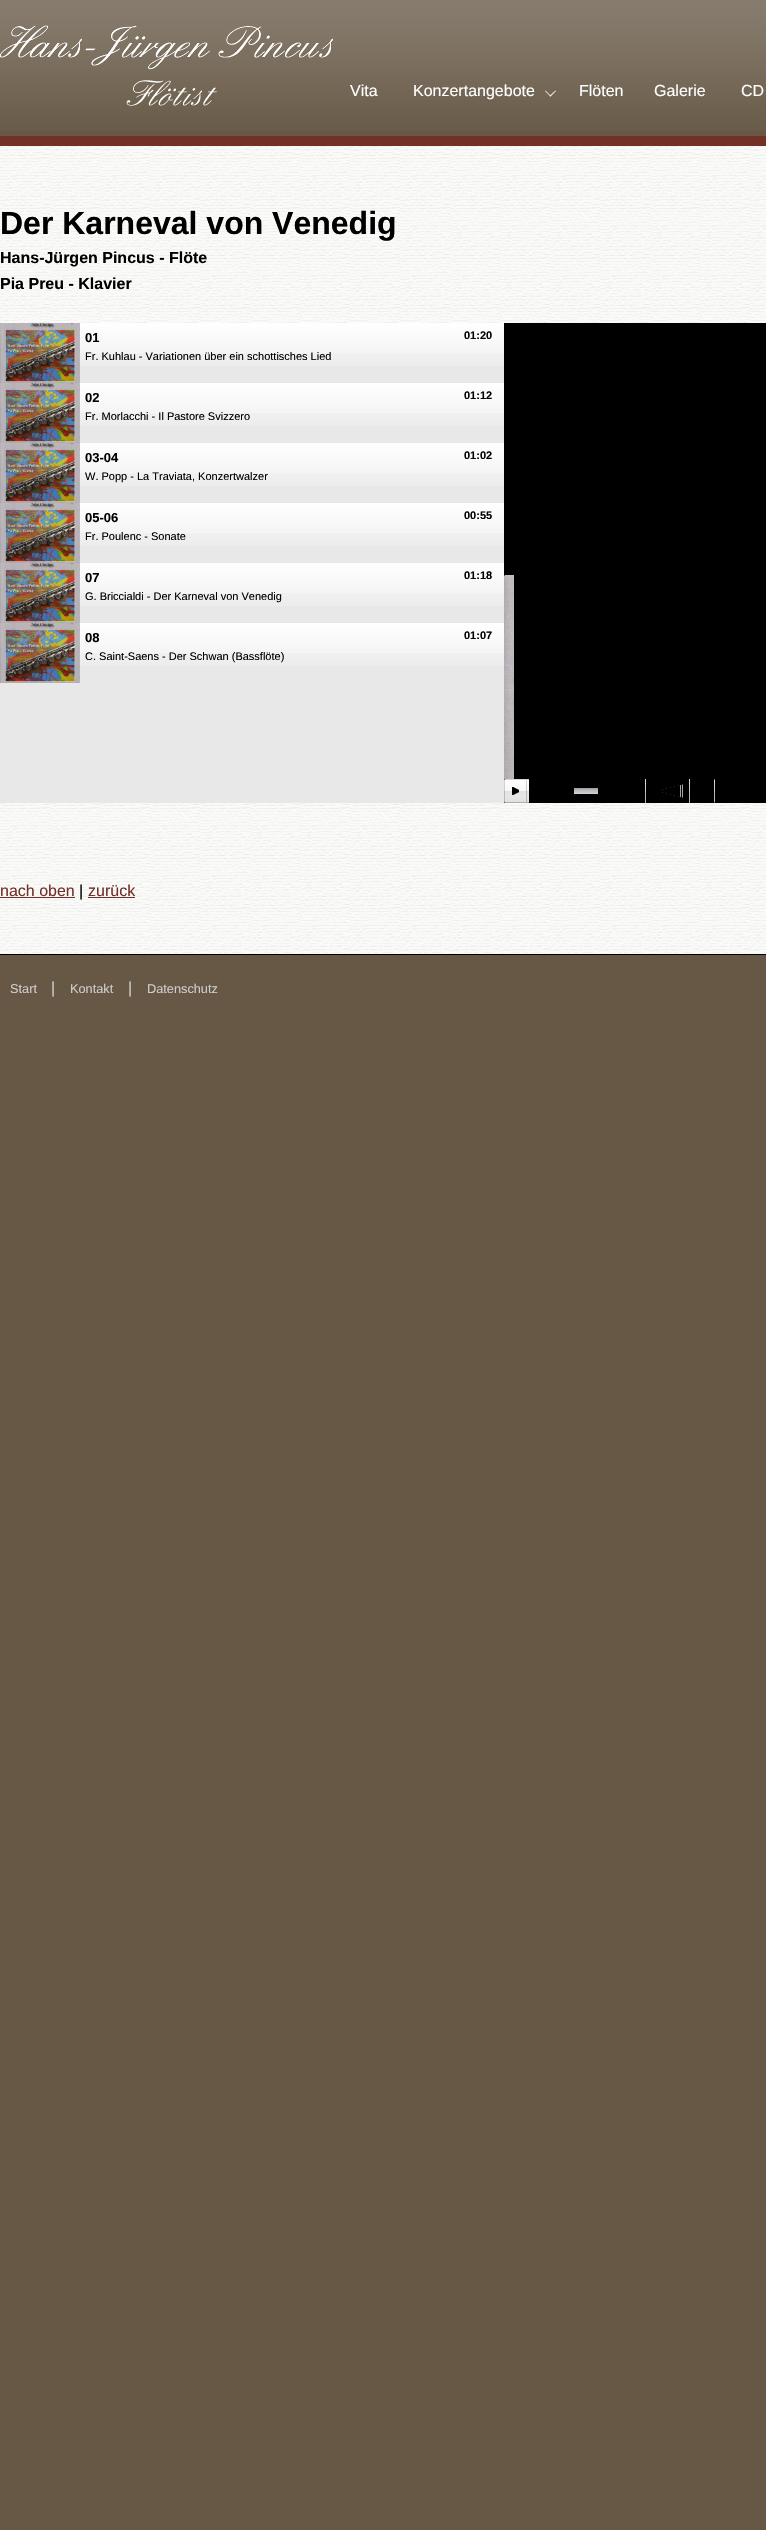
void draw(SkCanvas* canvas) {
    SkPaint paint;
    paint.setAntiAlias(true);
    auto face = [&](const char* family, int weight, float size, bool italic = false) {
        SkFontStyle style(weight, SkFontStyle::kNormal_Width,
            italic ? SkFontStyle::kItalic_Slant : SkFontStyle::kUpright_Slant);
        SkFont result(fontMgr->matchFamilyStyle(family, style), size);
        result.setSubpixel(true);
        return result;
    };
    auto write = [&](const char* s, float x, float y, const SkFont& font, SkColor color) {
        SkPaint ink(SkColor4f::FromColor(color));
        ink.setAntiAlias(true);
        canvas->drawString(s, x, y, font, ink);
    };
    auto block = [&](float x, float y, float w, float h, SkColor color) {
        SkPaint ink(SkColor4f::FromColor(color));
        ink.setAntiAlias(true);
        canvas->drawRect(SkRect::MakeXYWH(x, y, w, h), ink);
    };
    auto paste = [&](const char* path, float x, float y, float w, float h) {
        auto image = SkImages::DeferredFromEncodedData(SkData::MakeFromFileName(path));
        canvas->drawImageRect(image, SkRect::MakeXYWH(x, y, w, h), SkSamplingOptions());
    };
    canvas->clear(SkColorSetRGB(102, 88, 69));
    paste("pic1.png", 0, 0, 766, 131);
    paste("pic2.png", 0, 25, 333, 81);
    auto kFont1 = face("Liberation Sans", 400, 16);
    write("Vita", 350, 96, kFont1, SK_ColorWHITE);
    write("Konzertangebote", 413, 96, kFont1, SK_ColorWHITE);
    paint.setColor(SK_ColorWHITE);
    canvas->drawPath(SkPathBuilder().moveTo(555.5f, 90.5f).lineTo(556, 91).lineTo(550.5f, 96.5f).lineTo(549.5f, 96).close().detach(), paint);
    canvas->drawPath(SkPathBuilder().moveTo(545.5f, 90.5f).lineTo(551, 96).lineTo(550.5f, 96.5f).lineTo(545, 91).close().detach(), paint);
    write("Flöten", 579, 96, kFont1, SK_ColorWHITE);
    write("Galerie", 654, 96, kFont1, SK_ColorWHITE);
    write("CD", 741, 96, kFont1, SK_ColorWHITE);
    block(0, 136, 766, 10, SkColorSetRGB(115, 48, 39));
    paste("pic3.png", 0, 146, 766, 808);
    auto kFont2 = face("Liberation Sans", 700, 32);
    write("Der Karneval von Venedig", 0, 234, kFont2, SK_ColorBLACK);
    auto kFont3 = face("Liberation Sans", 700, 16);
    write("Hans-Jürgen Pincus - Flöte", 0, 263, kFont3, SK_ColorBLACK);
    write("Pia Preu - Klavier", 0, 289, kFont3, SK_ColorBLACK);
    block(504, 323, 262, 480, SK_ColorBLACK);
    block(0, 366, 504, 437, SkColorSetRGB(232, 232, 232));
    paste("pic4.png", 80, 323, 424, 43);
    paste("pic5.png", 0, 323, 80, 60);
    auto kFont4 = face("Liberation Sans", 700, 13);
    write("01", 85, 342, kFont4, SK_ColorBLACK);
    auto kFont5 = face("Liberation Sans", 700, 11);
    write("01:20", 464, 339, kFont5, SK_ColorBLACK);
    auto kFont6 = face("Liberation Sans", 400, 11);
    write("Fr. Kuhlau - Variationen über ein schottisches Lied", 85, 360, kFont6, SK_ColorBLACK);
    paste("pic4.png", 80, 383, 424, 43);
    paste("pic5.png", 0, 383, 80, 60);
    write("02", 85, 402, kFont4, SK_ColorBLACK);
    write("01:12", 464, 399, kFont5, SK_ColorBLACK);
    write("Fr. Morlacchi - Il Pastore Svizzero", 85, 420, kFont6, SK_ColorBLACK);
    paste("pic4.png", 80, 443, 424, 43);
    paste("pic5.png", 0, 443, 80, 60);
    write("03-04", 85, 462, kFont4, SK_ColorBLACK);
    write("01:02", 464, 459, kFont5, SK_ColorBLACK);
    write("W. Popp - La Traviata, Konzertwalzer", 85, 480, kFont6, SK_ColorBLACK);
    paste("pic4.png", 80, 503, 424, 43);
    paste("pic5.png", 0, 503, 80, 60);
    write("05-06", 85, 522, kFont4, SK_ColorBLACK);
    write("00:55", 464, 519, kFont5, SK_ColorBLACK);
    write("Fr. Poulenc - Sonate", 85, 540, kFont6, SK_ColorBLACK);
    paste("pic4.png", 80, 563, 424, 43);
    paste("pic5.png", 0, 563, 80, 60);
    write("07", 85, 582, kFont4, SK_ColorBLACK);
    write("01:18", 464, 579, kFont5, SK_ColorBLACK);
    write("G. Briccialdi - Der Karneval von Venedig", 85, 600, kFont6, SK_ColorBLACK);
    paste("pic4.png", 80, 623, 424, 43);
    paste("pic5.png", 0, 623, 80, 60);
    write("08", 85, 642, kFont4, SK_ColorBLACK);
    write("01:07", 464, 639, kFont5, SK_ColorBLACK);
    write("C. Saint-Saens - Der Schwan (Bassflöte)", 85, 660, kFont6, SK_ColorBLACK);
    paste("pic6.png", 504, 575, 10, 204);
    block(504, 575, 1, 1, SkColorSetRGB(66, 64, 66));
    paste("pic7.png", 504, 779, 1, 24);
    paste("pic8.png", 505, 779, 24, 24);
    paste("pic9.png", 512, 787, 7, 8);
    paste("pic10.png", 526, 780, 1, 22);
    paste("pic11.png", 574, 788, 24, 6);
    paste("pic12.png", 645, 779, 1, 24);
    paste("pic13.png", 662, 784, 21, 14);
    paste("pic14.png", 660, 785, 19, 12);
    paste("pic12.png", 689, 779, 1, 24);
    paste("pic7.png", 714, 779, 1, 24);
    write("nach oben", 0, 896, kFont1, SkColorSetRGB(115, 48, 39));
    block(0, 897, 75, 1, SkColorSetRGB(115, 48, 39));
    write("|", 79, 896, kFont1, SK_ColorBLACK);
    write("zurück", 88, 896, kFont1, SkColorSetRGB(115, 48, 39));
    block(88, 897, 47, 1, SkColorSetRGB(115, 48, 39));
    block(0, 954, 766, 1, SK_ColorBLACK);
    auto kFont7 = face("Liberation Sans", 400, 12.75f);
    write("Start", 10, 993, kFont7, SkColorSetRGB(204, 204, 204));
    write("|", 51, 993, kFont1, SkColorSetRGB(204, 204, 204));
    write("Kontakt", 70, 993, kFont7, SkColorSetRGB(204, 204, 204));
    write("|", 128, 993, kFont1, SkColorSetRGB(204, 204, 204));
    write("Datenschutz", 147, 993, kFont7, SkColorSetRGB(204, 204, 204));
}
